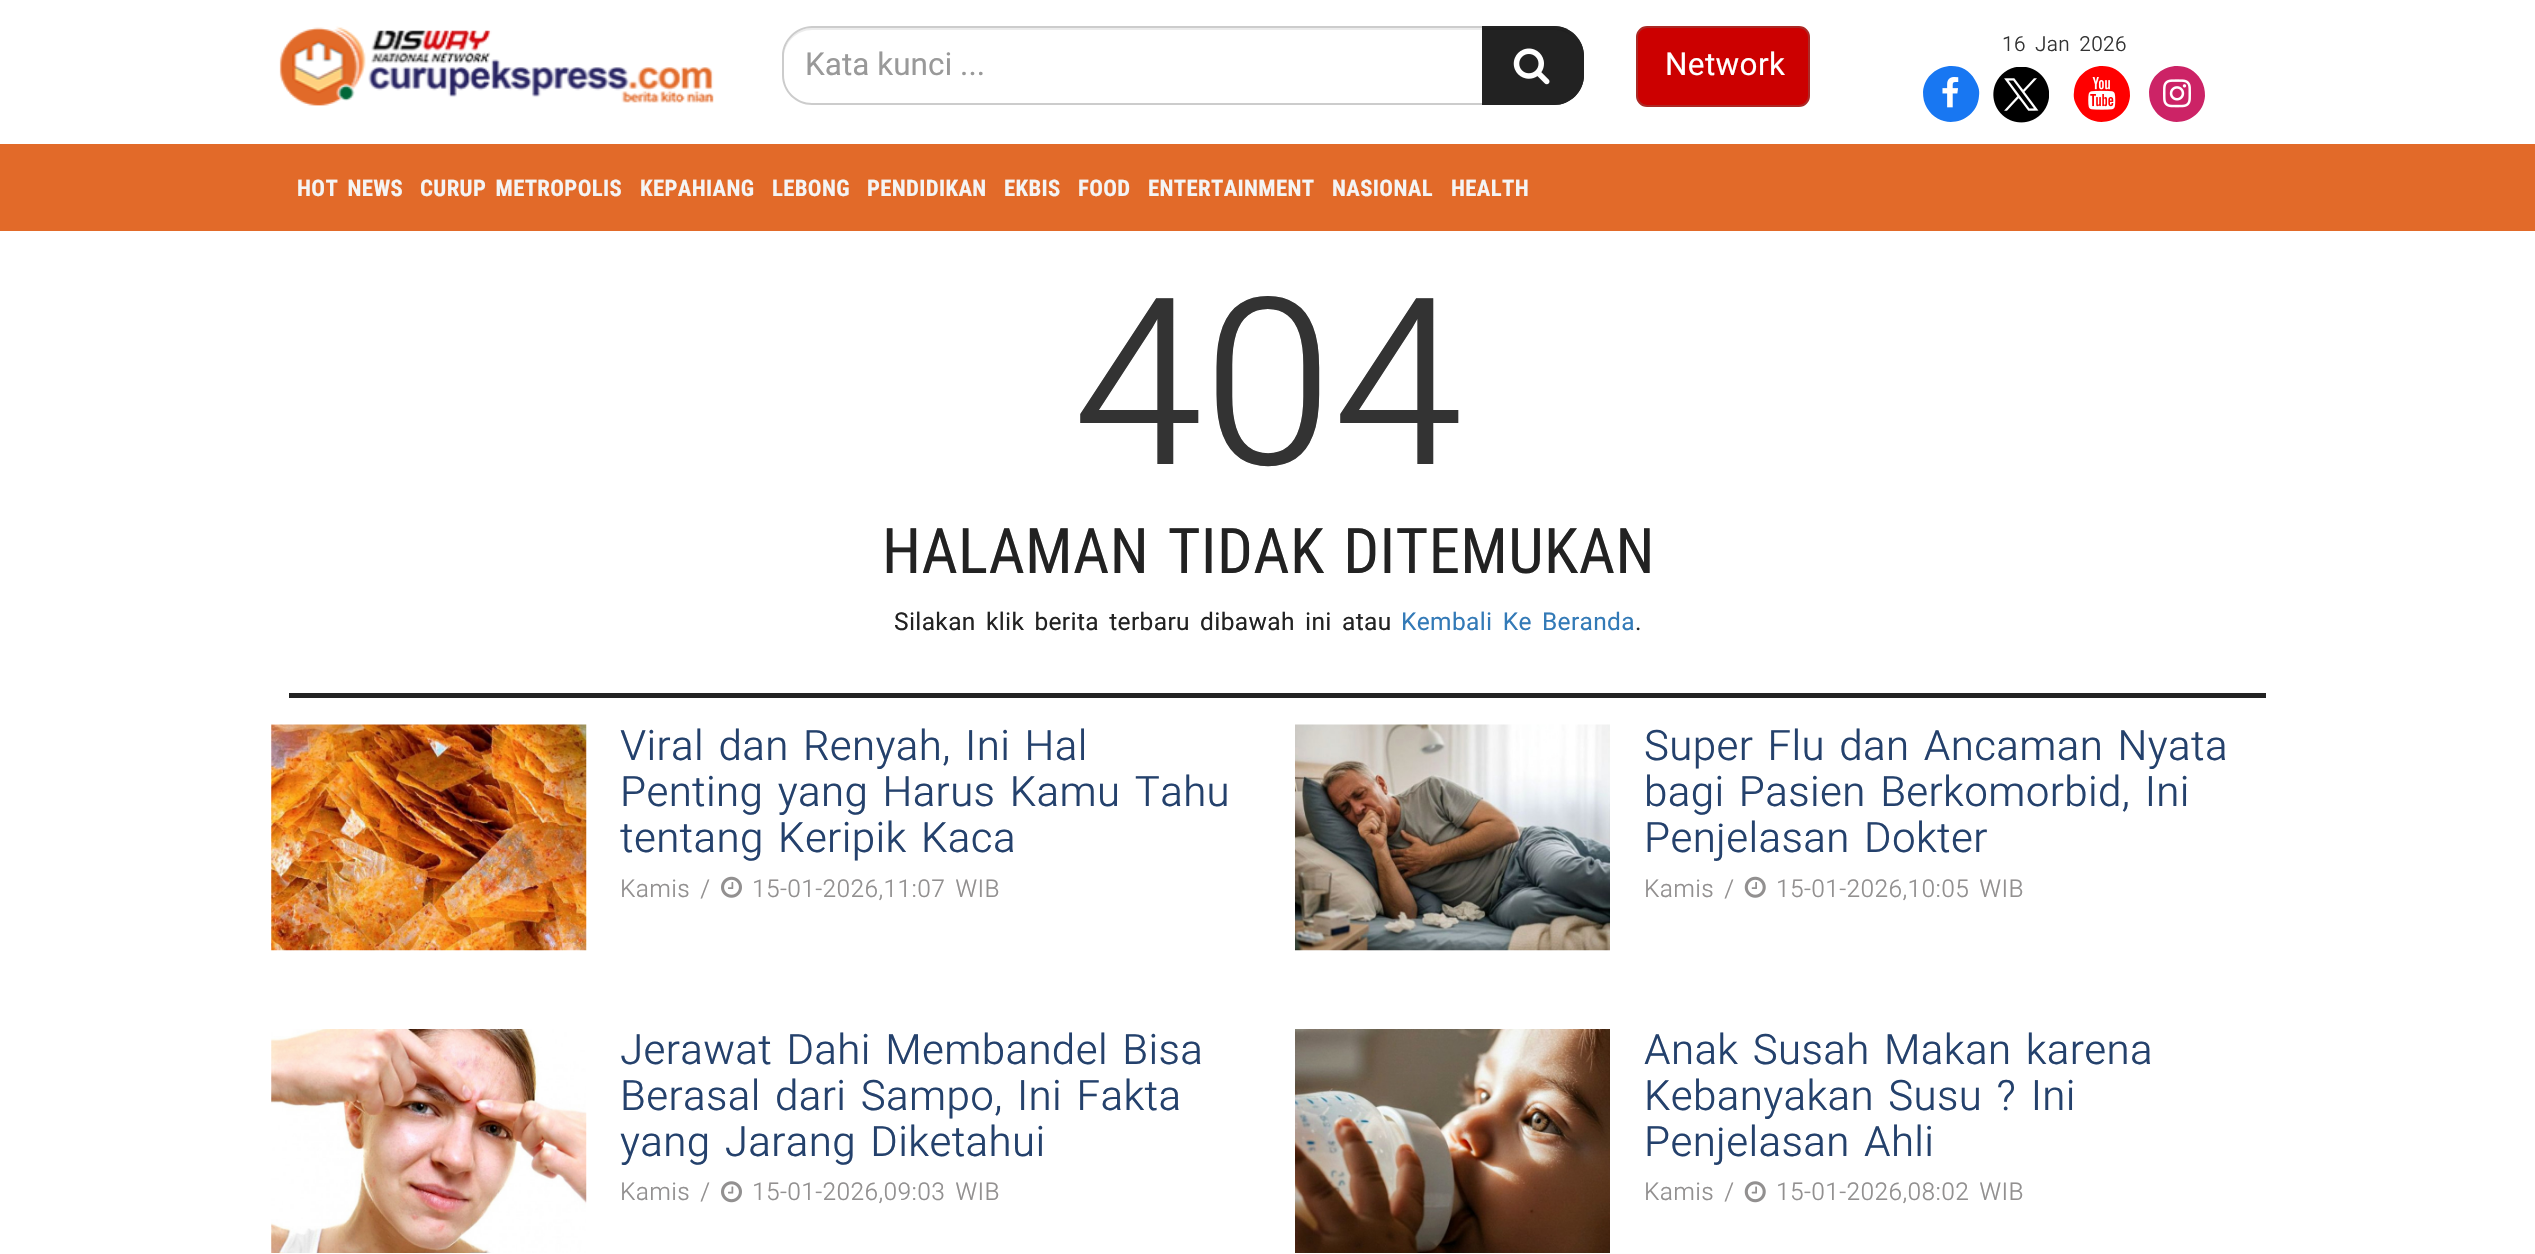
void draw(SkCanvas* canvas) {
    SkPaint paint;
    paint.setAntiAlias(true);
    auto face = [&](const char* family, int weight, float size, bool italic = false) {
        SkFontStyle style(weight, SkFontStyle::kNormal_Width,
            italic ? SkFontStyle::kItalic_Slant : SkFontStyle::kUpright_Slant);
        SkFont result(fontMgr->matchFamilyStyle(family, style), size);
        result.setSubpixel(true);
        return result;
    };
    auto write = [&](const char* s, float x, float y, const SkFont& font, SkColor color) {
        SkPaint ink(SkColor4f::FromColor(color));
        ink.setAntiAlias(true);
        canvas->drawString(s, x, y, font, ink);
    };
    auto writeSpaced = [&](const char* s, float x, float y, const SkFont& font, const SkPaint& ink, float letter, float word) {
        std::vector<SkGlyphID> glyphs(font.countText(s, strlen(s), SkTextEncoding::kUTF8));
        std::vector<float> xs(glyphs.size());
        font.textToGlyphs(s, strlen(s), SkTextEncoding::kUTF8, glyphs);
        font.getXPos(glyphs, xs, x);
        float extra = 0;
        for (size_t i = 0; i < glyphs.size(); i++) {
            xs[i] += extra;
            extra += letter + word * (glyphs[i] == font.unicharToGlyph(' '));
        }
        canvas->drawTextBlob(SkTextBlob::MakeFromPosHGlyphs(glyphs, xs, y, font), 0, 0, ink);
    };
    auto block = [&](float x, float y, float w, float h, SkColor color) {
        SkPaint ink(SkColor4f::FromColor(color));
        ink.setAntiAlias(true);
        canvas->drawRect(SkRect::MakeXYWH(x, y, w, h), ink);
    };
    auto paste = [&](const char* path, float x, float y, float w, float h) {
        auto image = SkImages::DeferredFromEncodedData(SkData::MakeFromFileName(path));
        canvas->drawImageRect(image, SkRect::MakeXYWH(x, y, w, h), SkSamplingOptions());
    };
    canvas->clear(SK_ColorWHITE);
    paste("pic1.png", 279, 26, 435, 80);
    paint.setColor(SkColorSetRGB(236, 236, 236));
    canvas->drawPath(SkPathBuilder().moveTo(812, 30).lineTo(1482, 30).lineTo(1482, 28).lineTo(812, 28).cubicTo(797, 28, 784, 41, 784, 56).lineTo(784, 58).cubicTo(784, 42, 797, 30, 812, 30).close().detach(), paint);
    paint.setColor(SkColorSetRGB(204, 204, 204));
    canvas->drawPath(SkPathBuilder(SkPathFillType::kEvenOdd).moveTo(812, 26).lineTo(1482, 26).lineTo(1482, 105).lineTo(812, 105).cubicTo(796, 105, 782, 92, 782, 75).lineTo(782, 56).cubicTo(782, 40, 796, 26, 812, 26).close().moveTo(812, 28).lineTo(1482, 28).lineTo(1482, 103).lineTo(812, 103).cubicTo(797, 103, 784, 91, 784, 75).lineTo(784, 56).cubicTo(784, 41, 797, 28, 812, 28).close().detach(), paint);
    auto kFont1 = face("Heebo", 400, 31.5f);
    write("Kata kunci ...", 805, 75, kFont1, SkColorSetRGB(153, 153, 153));
    paint.setColor(SkColorSetRGB(34, 34, 34));
    canvas->drawPath(SkPathBuilder().moveTo(1482, 26).lineTo(1554, 26).cubicTo(1570.5f, 26, 1584, 39.5f, 1584, 56).lineTo(1584, 75).cubicTo(1584, 91.5f, 1570.5f, 105, 1554, 105).lineTo(1482, 105).close().detach(), paint);
    paint.setColor(SkColorSetRGB(31, 31, 31));
    canvas->drawPath(SkPathBuilder().moveTo(1482, 30).lineTo(1554, 30).cubicTo(1569, 30, 1582, 42, 1582, 58).lineTo(1582, 56).cubicTo(1582, 41, 1569, 28, 1554, 28).lineTo(1482, 28).close().detach(), paint);
    paint.setColor(SkColorSetRGB(34, 34, 34));
    canvas->drawPath(SkPathBuilder(SkPathFillType::kEvenOdd).moveTo(1482, 26).lineTo(1554, 26).cubicTo(1570, 26, 1584, 40, 1584, 56).lineTo(1584, 75).cubicTo(1584, 92, 1570, 105, 1554, 105).lineTo(1482, 105).close().moveTo(1482, 28).lineTo(1554, 28).cubicTo(1569, 28, 1582, 41, 1582, 56).lineTo(1582, 75).cubicTo(1582, 91, 1569, 103, 1554, 103).lineTo(1482, 103).close().detach(), paint);
    paste("pic2.png", 1513, 48, 37, 37);
    auto kFont2 = face("Heebo", 300, 20.75f);
    paint.setColor(SkColorSetRGB(51, 51, 51));
    writeSpaced("16 Jan 2026", 2002, 51, kFont2, paint, 0.35f, 3.75f);
    paint.setColor(SkColorSetRGB(24, 119, 242));
    canvas->drawPath(SkPathBuilder().moveTo(1975, 80).cubicTo(1978, 85, 1980, 90, 1979, 96).cubicTo(1977, 123, 1941, 132, 1927, 108).cubicTo(1924, 103, 1923, 98, 1923, 92).cubicTo(1925, 65, 1962, 56, 1975, 80).close().detach(), paint);
    paste("pic3.png", 1942, 77, 17, 31);
    paste("pic4.png", 1993, 67, 56, 56);
    paint.setColor(SkColorSetRGB(255, 0, 0));
    canvas->drawPath(SkPathBuilder().moveTo(2126, 80).cubicTo(2129, 85, 2130, 90, 2130, 96).cubicTo(2128, 123, 2091, 132, 2078, 108).cubicTo(2075, 103, 2073, 98, 2074, 92).cubicTo(2076, 65, 2112, 56, 2126, 80).close().detach(), paint);
    paste("pic5.png", 2088, 77, 28, 33);
    paint.setColor(SkColorSetRGB(204, 35, 102));
    canvas->drawPath(SkPathBuilder().moveTo(2201, 80).cubicTo(2204, 85, 2205, 90, 2205, 96).cubicTo(2203, 123, 2167, 132, 2153, 108).cubicTo(2150, 103, 2149, 98, 2149, 92).cubicTo(2151, 65, 2187, 56, 2201, 80).close().detach(), paint);
    paste("pic6.png", 2163, 79, 28, 29);
    paint.setColor(SkColorSetRGB(204, 0, 0));
    canvas->drawRoundRect(SkRect::MakeXYWH(1637, 27, 172, 79), 10, 10, paint);
    paint.setStyle(SkPaint::kStroke_Style);
    paint.setStrokeWidth(2);
    paint.setColor(SkColorSetRGB(172, 41, 37));
    canvas->drawRoundRect(SkRect::MakeXYWH(1637, 27, 172, 79), 10, 10, paint);
    paint.setStyle(SkPaint::kFill_Style);
    paint.setColor(SK_ColorWHITE);
    writeSpaced("Network", 1665, 75, kFont1, paint, 0.35f, 0);
    block(0, 144, 2535, 87, SkColorSetRGB(226, 106, 41));
    auto kFont3 = face("Roboto Condensed", 700, 22.75f);
    paint.setColor(SkColorSetRGB(244, 244, 244));
    writeSpaced("HOT NEWS", 297, 196, kFont3, paint, 0.35f, 3.75f);
    writeSpaced("CURUP METROPOLIS", 420, 196, kFont3, paint, 0.35f, 3.75f);
    writeSpaced("KEPAHIANG", 640, 196, kFont3, paint, 0.35f, 0);
    writeSpaced("LEBONG", 772, 196, kFont3, paint, 0.35f, 0);
    writeSpaced("PENDIDIKAN", 867, 196, kFont3, paint, 0.35f, 0);
    writeSpaced("EKBIS", 1004, 196, kFont3, paint, 0.35f, 0);
    writeSpaced("FOOD", 1078, 196, kFont3, paint, 0.35f, 0);
    writeSpaced("ENTERTAINMENT", 1148, 196, kFont3, paint, 0.35f, 0);
    writeSpaced("NASIONAL", 1332, 196, kFont3, paint, 0.35f, 0);
    writeSpaced("HEALTH", 1451, 196, kFont3, paint, 0.35f, 0);
    auto kFont4 = face("Heebo", 300, 233);
    paint.setColor(SkColorSetRGB(51, 51, 51));
    writeSpaced("404", 1073, 464, kFont4, paint, 0.35f, 0);
    auto kFont5 = face("Roboto Condensed", 400, 63);
    paint.setColor(SkColorSetRGB(34, 34, 34));
    writeSpaced("HALAMAN TIDAK DITEMUKAN", 882, 573, kFont5, paint, 0.35f, 3.75f);
    auto kFont6 = face("Heebo", 400, 24.5f);
    writeSpaced("Silakan klik berita terbaru dibawah ini atau", 894, 630, kFont6, paint, 0.35f, 3.75f);
    paint.setColor(SkColorSetRGB(51, 122, 183));
    writeSpaced("Kembali Ke Beranda", 1401, 630, kFont6, paint, 0.35f, 3.75f);
    paint.setColor(SkColorSetRGB(34, 34, 34));
    writeSpaced(".", 1635, 630, kFont6, paint, 0.35f, 0);
    block(289, 693, 1977, 5, SkColorSetRGB(34, 34, 34));
    paste("pic7.png", 271, 724, 316, 227);
    auto kFont7 = face("Heebo", 300, 42);
    paint.setColor(SkColorSetRGB(36, 65, 108));
    writeSpaced("Viral dan Renyah, Ini Hal", 620, 760, kFont7, paint, 0.35f, 3.75f);
    writeSpaced("Penting yang Harus Kamu Tahu", 620, 806, kFont7, paint, 0.35f, 3.75f);
    writeSpaced("tentang Keripik Kaca", 620, 852, kFont7, paint, 0.35f, 3.75f);
    auto kFont8 = face("Heebo", 300, 24.5f);
    paint.setColor(SkColorSetRGB(146, 144, 144));
    writeSpaced("Kamis /", 620, 897, kFont8, paint, 0.35f, 3.75f);
    paste("pic8.png", 721, 876, 21, 22);
    writeSpaced("15-01-2026,11:07 WIB", 752, 897, kFont8, paint, 0.35f, 3.75f);
    paste("pic9.png", 1295, 724, 315, 227);
    paint.setColor(SkColorSetRGB(36, 65, 108));
    writeSpaced("Super Flu dan Ancaman Nyata", 1644, 760, kFont7, paint, 0.35f, 3.75f);
    writeSpaced("bagi Pasien Berkomorbid, Ini", 1644, 806, kFont7, paint, 0.35f, 3.75f);
    writeSpaced("Penjelasan Dokter", 1644, 852, kFont7, paint, 0.35f, 3.75f);
    paint.setColor(SkColorSetRGB(146, 144, 144));
    writeSpaced("Kamis /", 1644, 897, kFont8, paint, 0.35f, 3.75f);
    paste("pic10.png", 1744, 876, 22, 22);
    writeSpaced("15-01-2026,10:05 WIB", 1776, 897, kFont8, paint, 0.35f, 3.75f);
    paste("pic11.png", 271, 1029, 316, 224);
    paint.setColor(SkColorSetRGB(36, 65, 108));
    writeSpaced("Jerawat Dahi Membandel Bisa", 620, 1064, kFont7, paint, 0.35f, 3.75f);
    writeSpaced("Berasal dari Sampo, Ini Fakta", 620, 1110, kFont7, paint, 0.35f, 3.75f);
    writeSpaced("yang Jarang Diketahui", 620, 1156, kFont7, paint, 0.35f, 3.75f);
    paint.setColor(SkColorSetRGB(146, 144, 144));
    writeSpaced("Kamis /", 620, 1200, kFont8, paint, 0.35f, 3.75f);
    paste("pic12.png", 721, 1181, 21, 22);
    writeSpaced("15-01-2026,09:03 WIB", 752, 1200, kFont8, paint, 0.35f, 3.75f);
    paste("pic13.png", 1295, 1029, 315, 224);
    paint.setColor(SkColorSetRGB(36, 65, 108));
    writeSpaced("Anak Susah Makan karena", 1644, 1064, kFont7, paint, 0.35f, 3.75f);
    writeSpaced("Kebanyakan Susu ? Ini", 1644, 1110, kFont7, paint, 0.35f, 3.75f);
    writeSpaced("Penjelasan Ahli", 1644, 1156, kFont7, paint, 0.35f, 3.75f);
    paint.setColor(SkColorSetRGB(146, 144, 144));
    writeSpaced("Kamis /", 1644, 1200, kFont8, paint, 0.35f, 3.75f);
    paste("pic14.png", 1744, 1181, 22, 22);
    writeSpaced("15-01-2026,08:02 WIB", 1776, 1200, kFont8, paint, 0.35f, 3.75f);
}
